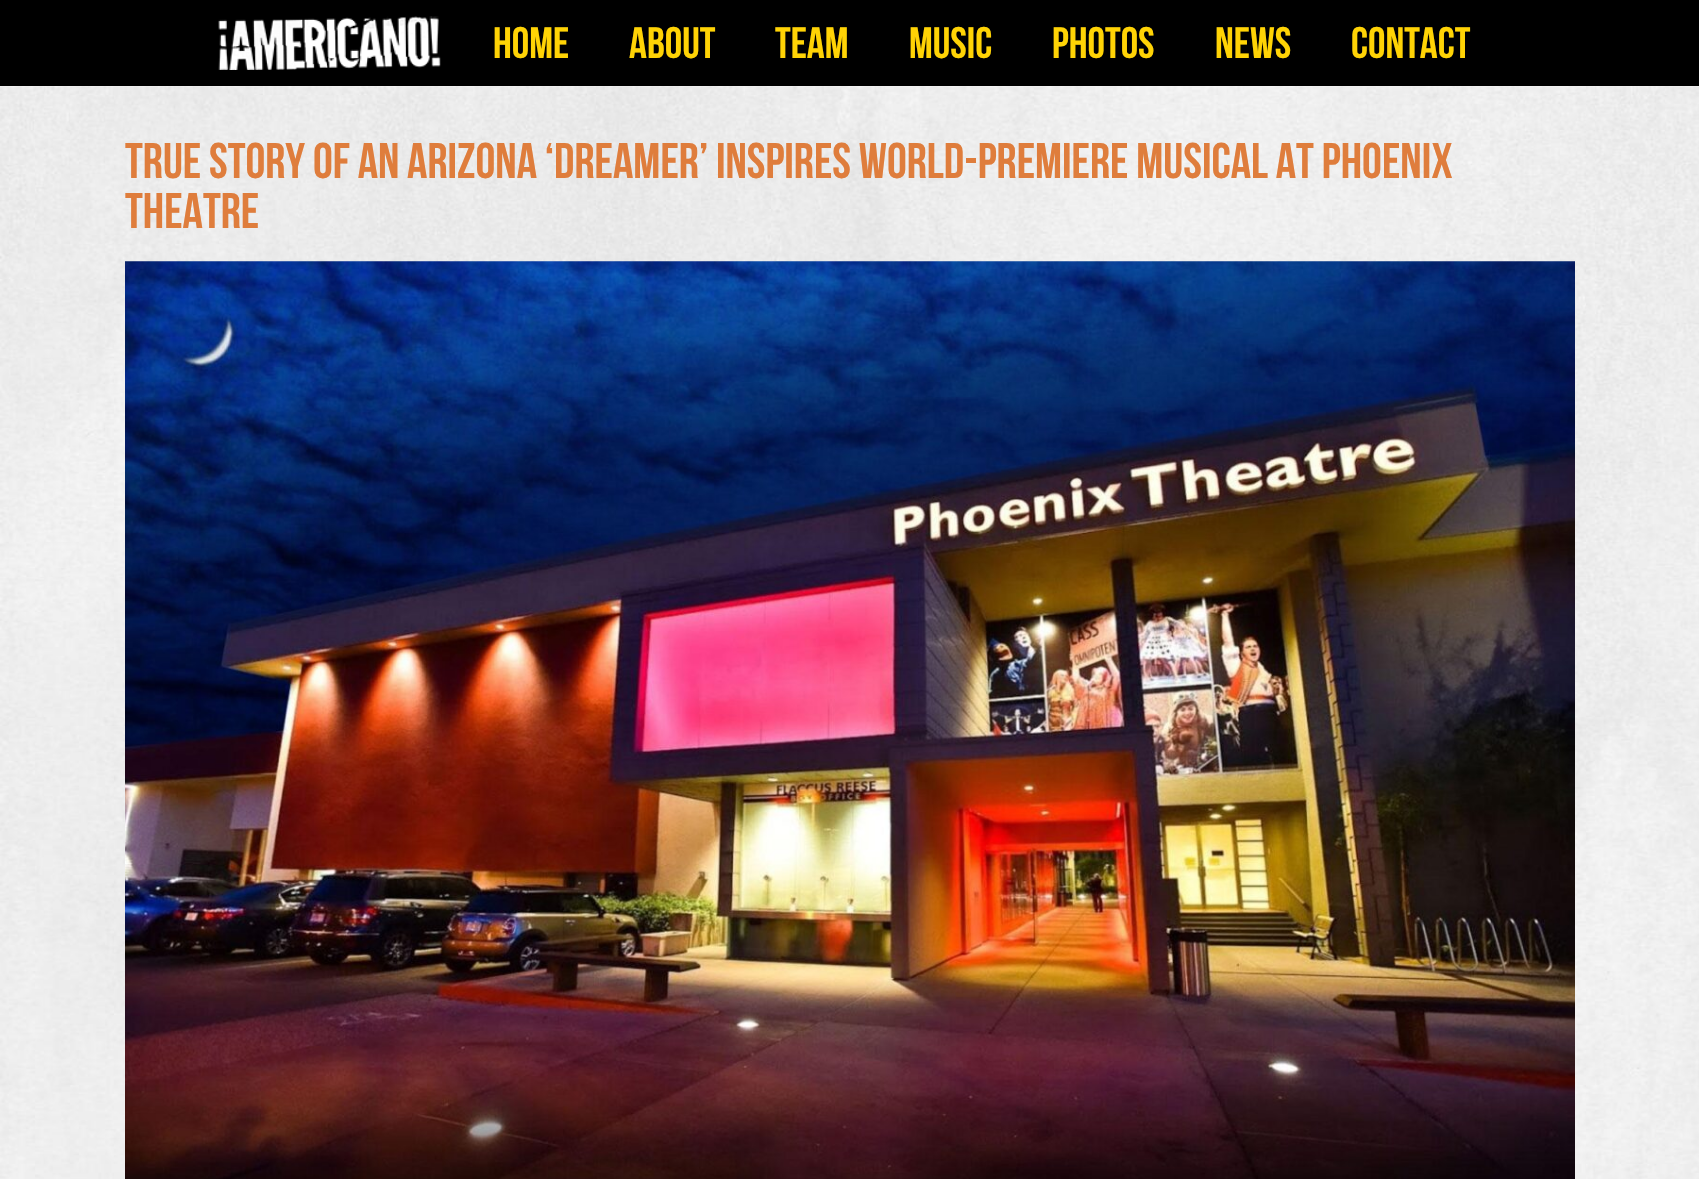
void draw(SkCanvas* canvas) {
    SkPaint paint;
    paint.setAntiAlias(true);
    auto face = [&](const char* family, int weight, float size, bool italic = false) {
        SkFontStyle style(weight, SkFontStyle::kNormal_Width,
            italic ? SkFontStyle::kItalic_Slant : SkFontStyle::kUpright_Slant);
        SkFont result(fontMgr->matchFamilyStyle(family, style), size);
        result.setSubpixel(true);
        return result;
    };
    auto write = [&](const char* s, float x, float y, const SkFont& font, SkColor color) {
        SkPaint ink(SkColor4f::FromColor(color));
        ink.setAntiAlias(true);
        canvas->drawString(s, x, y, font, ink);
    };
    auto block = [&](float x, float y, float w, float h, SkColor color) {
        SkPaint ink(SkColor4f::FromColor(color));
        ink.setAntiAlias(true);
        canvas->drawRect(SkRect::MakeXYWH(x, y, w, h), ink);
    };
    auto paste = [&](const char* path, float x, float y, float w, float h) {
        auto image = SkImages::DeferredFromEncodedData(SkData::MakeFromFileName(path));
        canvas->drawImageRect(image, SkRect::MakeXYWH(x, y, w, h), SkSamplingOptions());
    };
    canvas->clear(SK_ColorWHITE);
    block(0, 0, 1699, 86, SK_ColorBLACK);
    paste("pic1.png", 218, 16, 223, 54);
    auto kFont1 = face("Bebas Neue", 700, 44);
    write("HOME", 493, 58, kFont1, SkColorSetRGB(255, 211, 5));
    write("ABOUT", 629, 58, kFont1, SkColorSetRGB(255, 211, 5));
    write("TEAM", 775, 58, kFont1, SkColorSetRGB(255, 211, 5));
    write("MUSIC", 909, 58, kFont1, SkColorSetRGB(255, 211, 5));
    write("PHOTOS", 1052, 58, kFont1, SkColorSetRGB(255, 211, 5));
    write("NEWS", 1215, 58, kFont1, SkColorSetRGB(255, 211, 5));
    write("CONTACT", 1351, 58, kFont1, SkColorSetRGB(255, 211, 5));
    paste("pic2.png", 0, 86, 1699, 1093);
    auto kFont2 = face("Bebas Neue", 700, 50);
    write("True story of an Arizona ‘Dreamer’ inspires world-premiere musical at Phoenix", 125, 178, kFont2, SkColorSetRGB(223, 125, 60));
    write("Theatre", 125, 228, kFont2, SkColorSetRGB(223, 125, 60));
    paste("pic3.png", 125, 261, 1450, 918);
}
